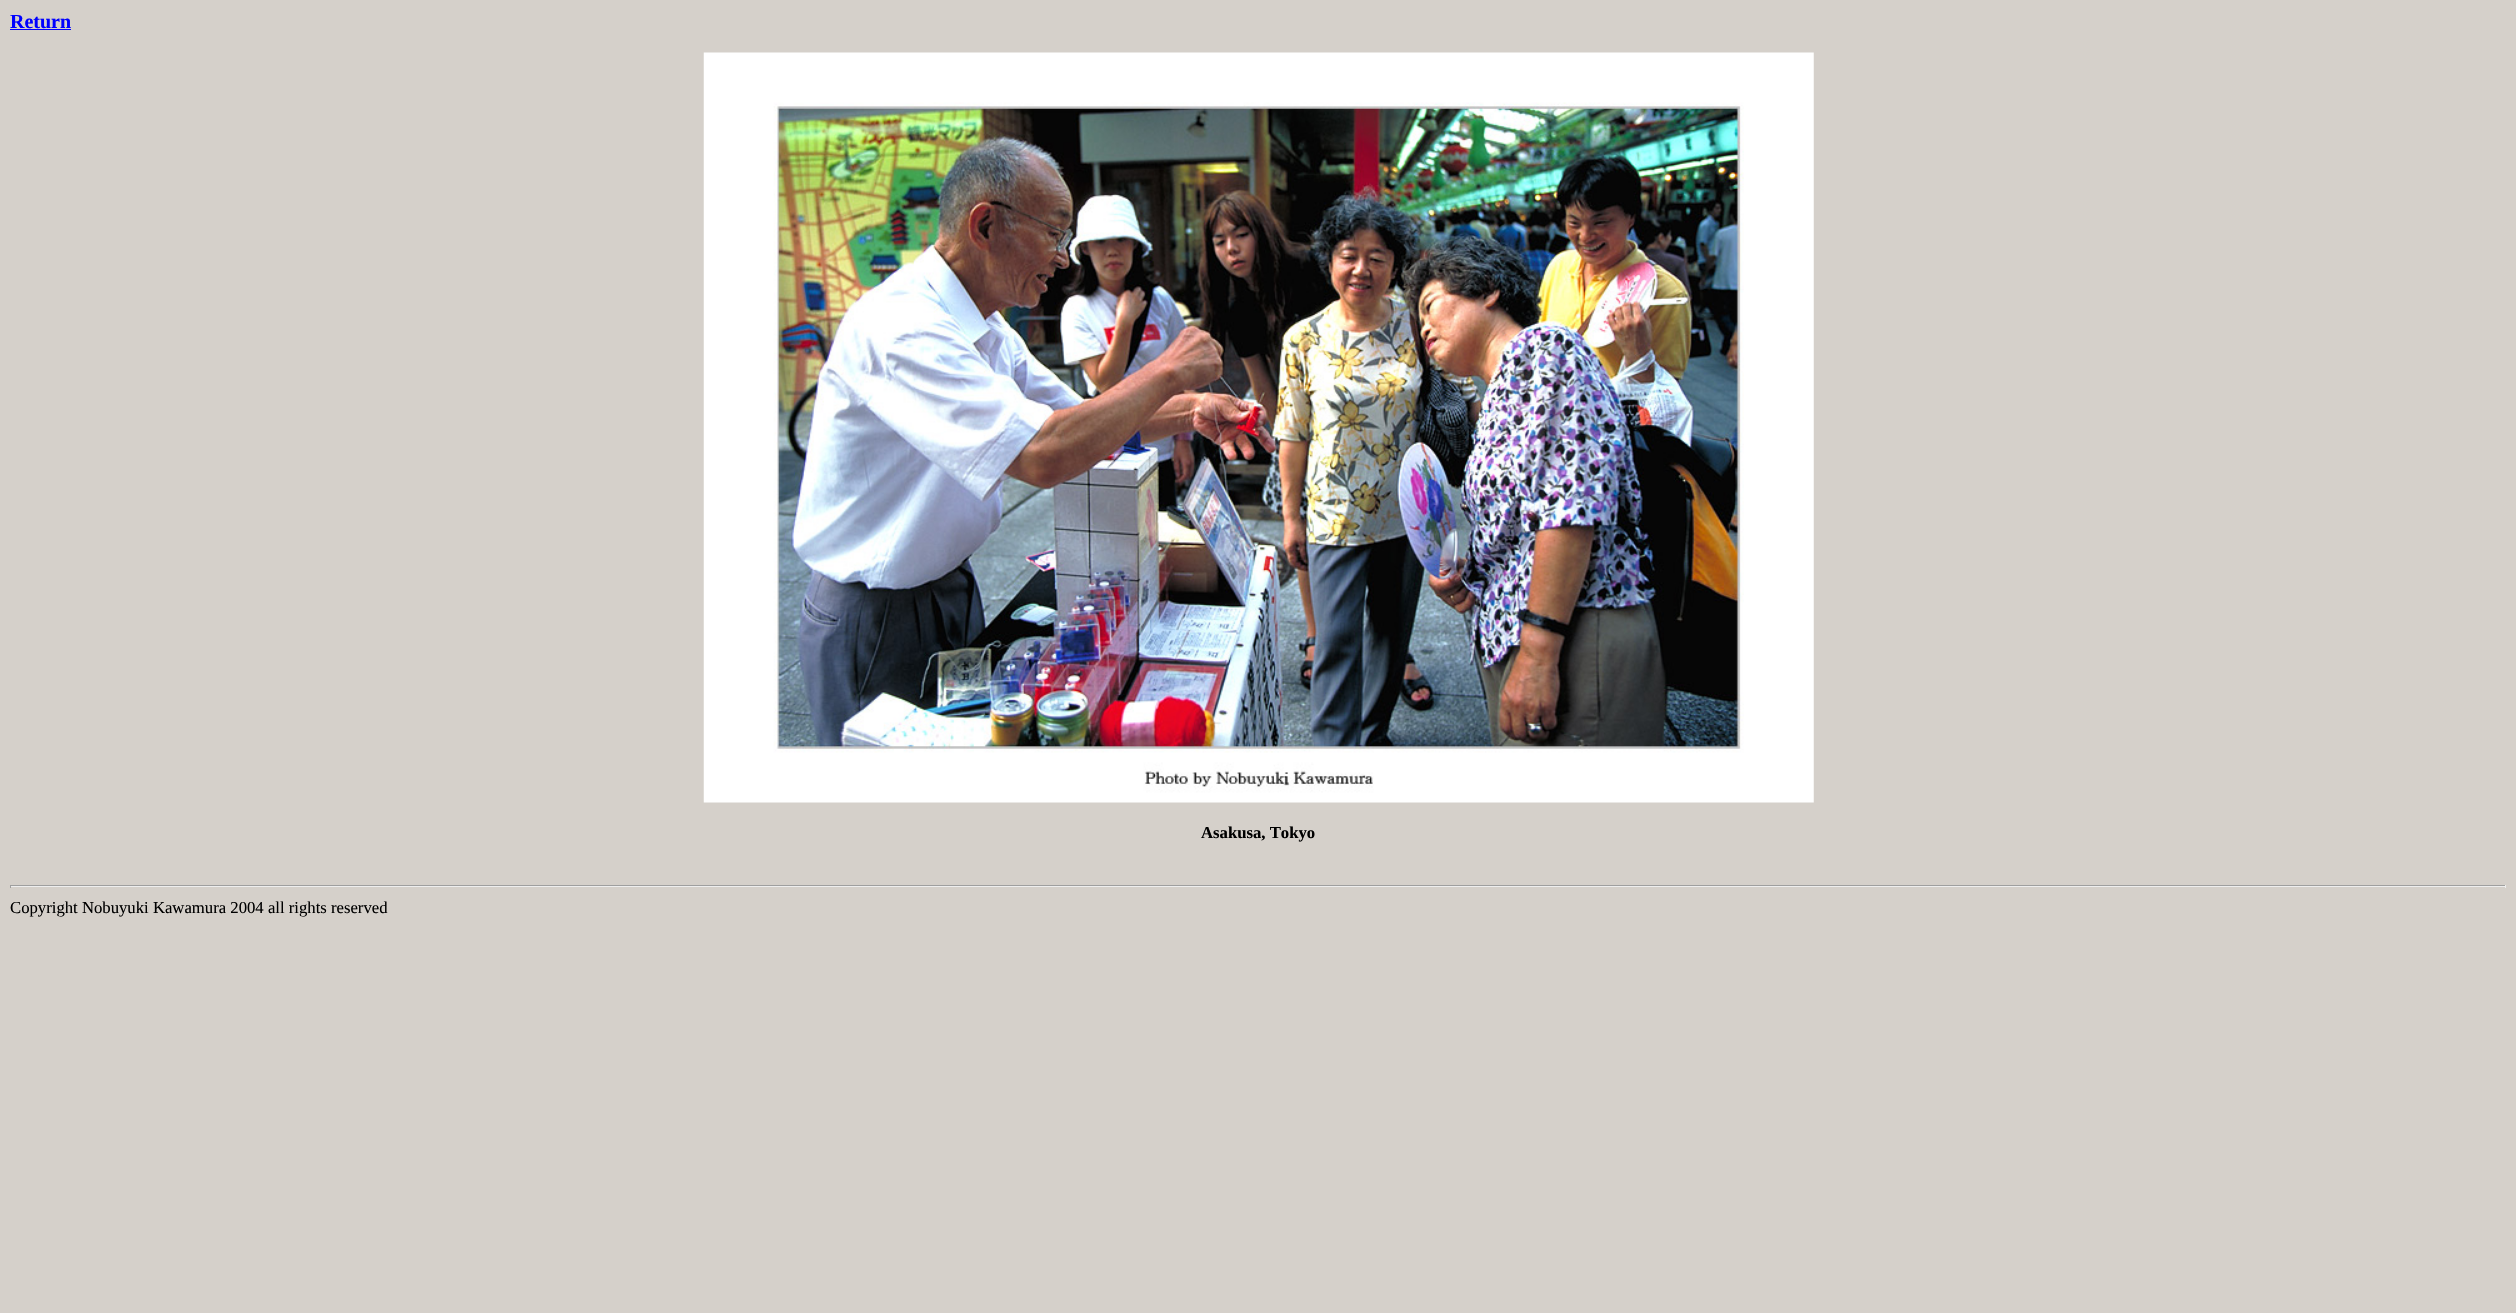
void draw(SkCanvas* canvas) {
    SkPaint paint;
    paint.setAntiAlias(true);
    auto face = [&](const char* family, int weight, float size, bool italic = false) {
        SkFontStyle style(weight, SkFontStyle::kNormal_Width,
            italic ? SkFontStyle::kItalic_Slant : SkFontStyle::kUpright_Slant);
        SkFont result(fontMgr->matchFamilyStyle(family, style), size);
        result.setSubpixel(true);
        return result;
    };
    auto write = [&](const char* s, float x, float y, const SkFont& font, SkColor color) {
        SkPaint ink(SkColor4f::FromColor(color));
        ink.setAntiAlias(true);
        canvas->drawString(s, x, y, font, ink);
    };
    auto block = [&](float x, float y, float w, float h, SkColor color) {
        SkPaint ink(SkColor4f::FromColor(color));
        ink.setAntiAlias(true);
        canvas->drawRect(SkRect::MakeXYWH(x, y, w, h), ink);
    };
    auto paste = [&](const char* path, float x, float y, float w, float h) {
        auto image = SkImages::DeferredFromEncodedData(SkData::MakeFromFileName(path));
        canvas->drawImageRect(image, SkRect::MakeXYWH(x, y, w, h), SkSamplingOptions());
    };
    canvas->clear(SkColorSetRGB(213, 208, 202));
    auto kFont1 = face("Liberation Serif", 700, 20);
    write("Return", 10, 28, kFont1, SkColorSetRGB(0, 0, 255));
    block(10, 29, 61, 1, SkColorSetRGB(0, 0, 255));
    paste("pic1.png", 703, 52, 1111, 751);
    auto kFont2 = face("Liberation Serif", 700, 16.7f);
    write("Asakusa, Tokyo", 1201, 838, kFont2, SK_ColorBLACK);
    block(10, 885, 2496, 1, SkColorSetRGB(159, 159, 159));
    block(2505, 885, 1, 3, SkColorSetRGB(238, 238, 238));
    block(10, 886, 2496, 1, SkColorSetRGB(238, 238, 238));
    block(10, 885, 1, 3, SkColorSetRGB(159, 159, 159));
    auto kFont3 = face("Liberation Serif", 400, 16.7f);
    write("Copyright Nobuyuki Kawamura 2004 all rights reserved", 10, 913, kFont3, SK_ColorBLACK);
}
